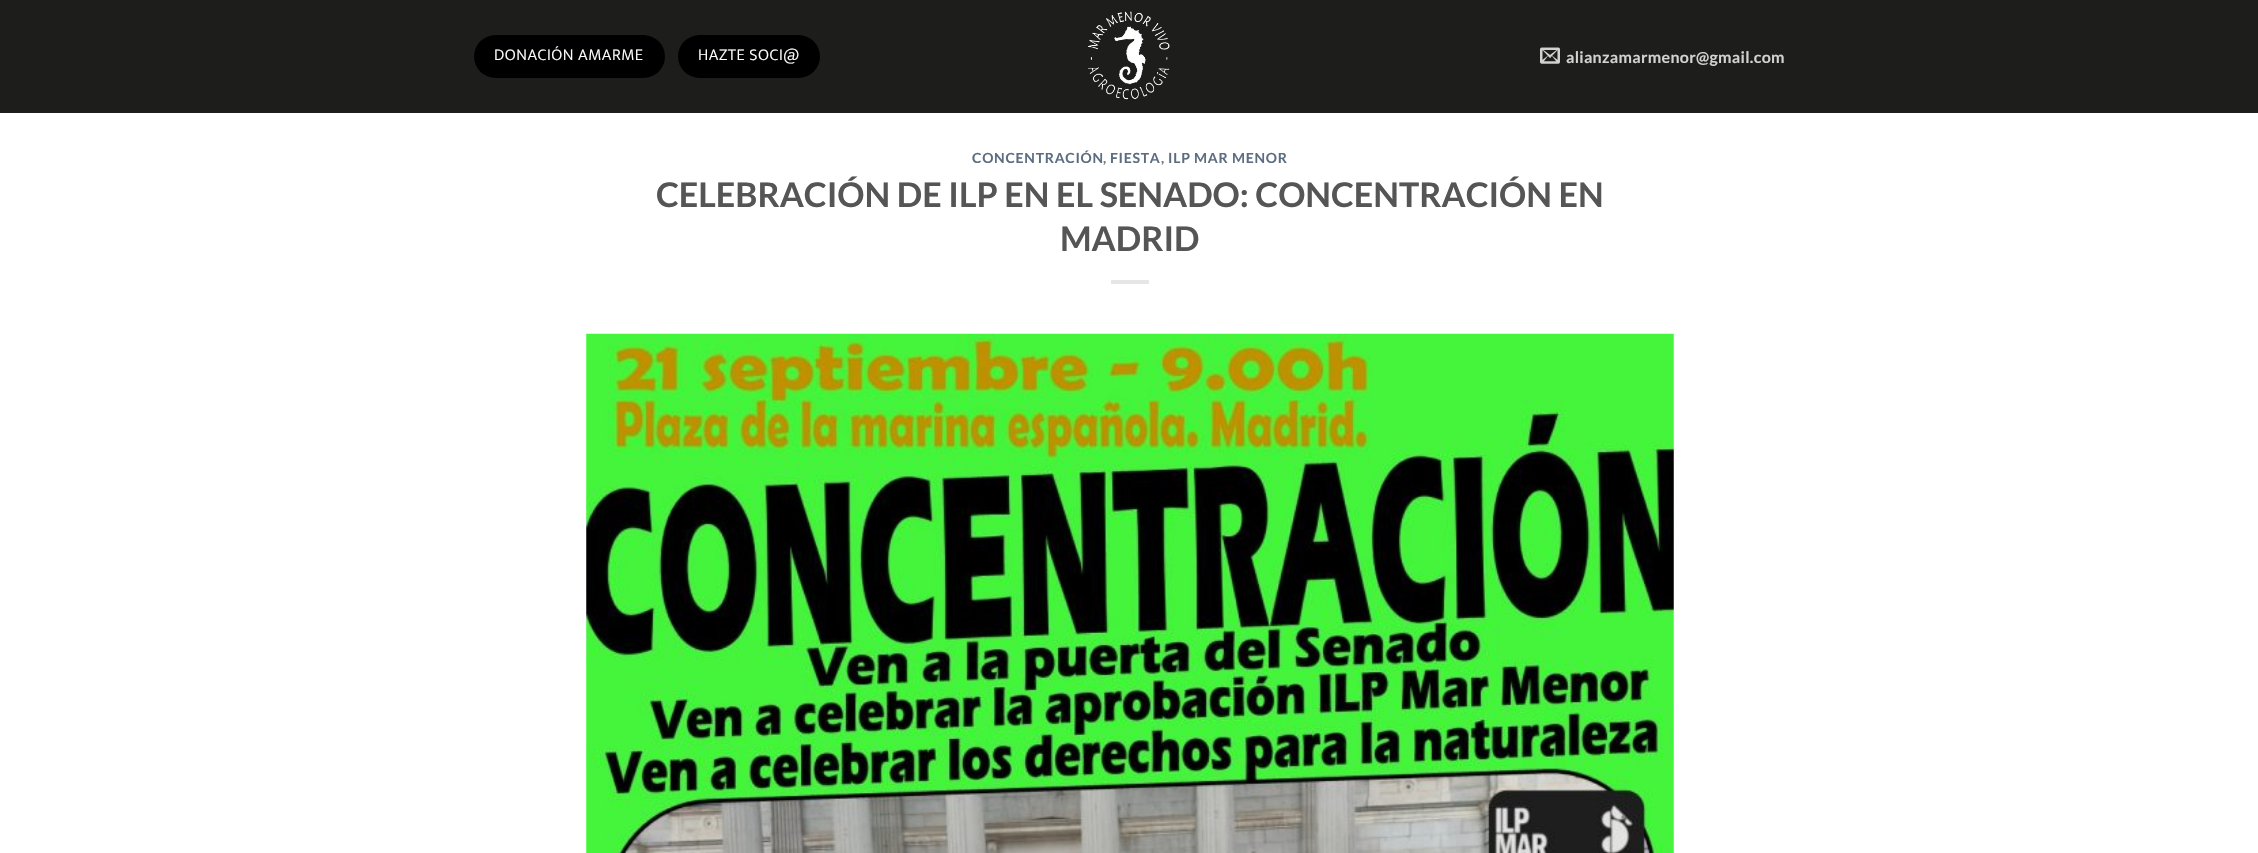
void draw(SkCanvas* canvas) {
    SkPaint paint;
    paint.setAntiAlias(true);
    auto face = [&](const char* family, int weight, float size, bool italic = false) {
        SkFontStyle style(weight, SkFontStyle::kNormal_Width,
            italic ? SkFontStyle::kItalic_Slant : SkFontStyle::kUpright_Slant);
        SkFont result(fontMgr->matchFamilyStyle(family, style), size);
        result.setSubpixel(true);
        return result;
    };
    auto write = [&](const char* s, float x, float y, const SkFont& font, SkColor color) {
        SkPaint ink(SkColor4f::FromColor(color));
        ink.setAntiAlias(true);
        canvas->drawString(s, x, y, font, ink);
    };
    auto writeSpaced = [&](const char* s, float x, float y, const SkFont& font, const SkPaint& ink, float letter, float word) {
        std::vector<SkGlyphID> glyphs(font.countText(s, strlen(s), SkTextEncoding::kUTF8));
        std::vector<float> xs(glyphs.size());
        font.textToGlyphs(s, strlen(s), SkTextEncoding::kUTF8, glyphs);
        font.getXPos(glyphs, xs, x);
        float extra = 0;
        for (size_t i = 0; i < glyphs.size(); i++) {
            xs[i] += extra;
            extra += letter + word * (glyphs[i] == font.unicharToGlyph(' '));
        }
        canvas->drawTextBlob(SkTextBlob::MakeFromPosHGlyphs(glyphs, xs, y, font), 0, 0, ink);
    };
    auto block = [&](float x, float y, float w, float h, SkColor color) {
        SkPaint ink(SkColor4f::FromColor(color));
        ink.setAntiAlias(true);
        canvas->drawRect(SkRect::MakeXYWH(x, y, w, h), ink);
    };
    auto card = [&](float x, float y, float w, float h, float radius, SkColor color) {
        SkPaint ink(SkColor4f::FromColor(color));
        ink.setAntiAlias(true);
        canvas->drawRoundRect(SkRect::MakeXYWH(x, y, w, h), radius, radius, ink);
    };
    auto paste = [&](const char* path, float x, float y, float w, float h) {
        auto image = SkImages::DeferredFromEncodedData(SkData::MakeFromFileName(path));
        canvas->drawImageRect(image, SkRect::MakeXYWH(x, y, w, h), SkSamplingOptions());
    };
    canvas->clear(SK_ColorWHITE);
    block(0, 0, 2258, 113, SkColorSetRGB(29, 29, 27));
    card(474, 35, 191, 43, 21.5f, SK_ColorBLACK);
    auto kFont1 = face("Mukta", 300, 16.5f);
    paint.setColor(SK_ColorWHITE);
    writeSpaced("DONACIÓN AMARME", 494, 60, kFont1, paint, 0.5f, 0);
    card(678, 35, 142, 43, 21.5f, SK_ColorBLACK);
    writeSpaced("HAZTE SOCI@", 698, 60, kFont1, paint, 0.5f, 0);
    paste("pic1.png", 1088, 11, 82, 89);
    paste("pic2.png", 1540, 47, 20, 17);
    auto kFont2 = face("Lato", 700, 16);
    paint.setColor(SkColorSetRGB(210, 210, 209));
    writeSpaced("alianzamarmenor@gmail.com", 1566, 63, kFont2, paint, 0.3f, 0);
    auto kFont3 = face("Lato", 700, 14);
    paint.setColor(SkColorSetRGB(92, 109, 129));
    writeSpaced("CONCENTRACIÓN", 972, 163, kFont3, paint, 0.75f, 0);
    paint.setColor(SkColorSetRGB(119, 119, 119));
    writeSpaced(",", 1103, 163, kFont3, paint, 0.75f, 0);
    paint.setColor(SkColorSetRGB(92, 109, 129));
    writeSpaced("FIESTA", 1110, 163, kFont3, paint, 0.75f, 0);
    paint.setColor(SkColorSetRGB(119, 119, 119));
    writeSpaced(",", 1161, 163, kFont3, paint, 0.75f, 0);
    paint.setColor(SkColorSetRGB(92, 109, 129));
    writeSpaced("ILP MAR MENOR", 1168, 163, kFont3, paint, 0.75f, 0);
    auto kFont4 = face("Lato", 700, 34);
    write("CELEBRACIÓN DE ILP EN EL SENADO: CONCENTRACIÓN EN", 656, 207, kFont4, SkColorSetRGB(85, 85, 85));
    write("MADRID", 1060, 251, kFont4, SkColorSetRGB(85, 85, 85));
    block(1111, 280, 38, 4, SkColorSetRGB(230, 230, 230));
    paste("pic3.png", 586, 333, 1088, 520);
}
